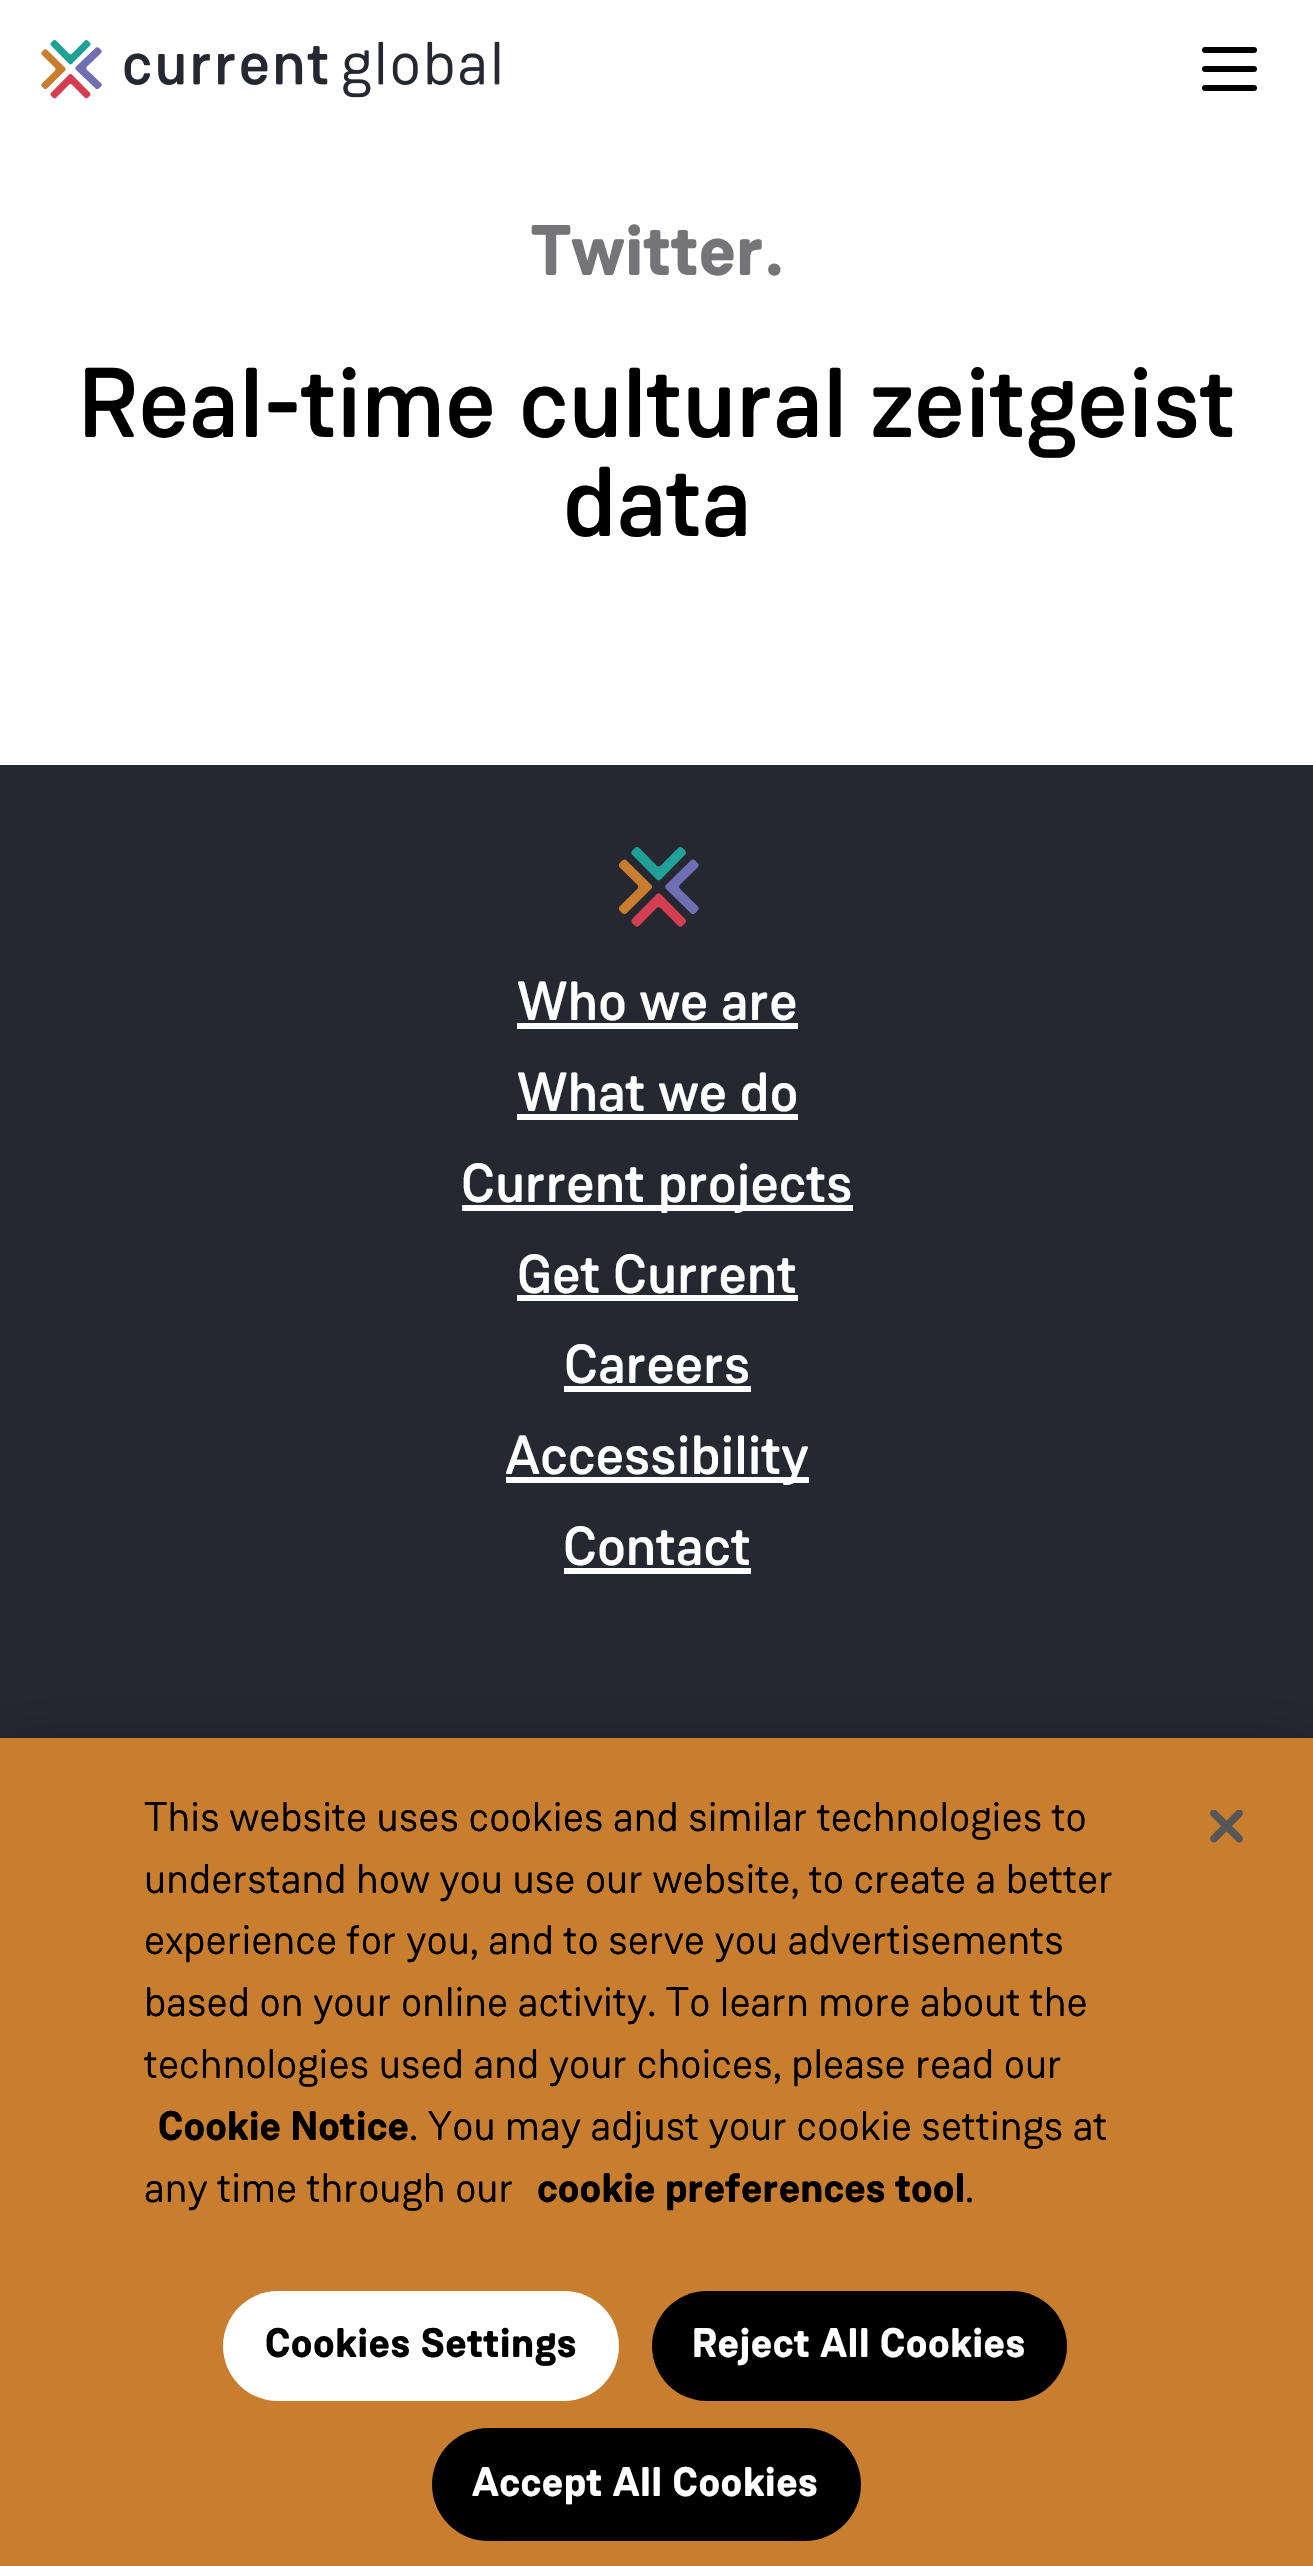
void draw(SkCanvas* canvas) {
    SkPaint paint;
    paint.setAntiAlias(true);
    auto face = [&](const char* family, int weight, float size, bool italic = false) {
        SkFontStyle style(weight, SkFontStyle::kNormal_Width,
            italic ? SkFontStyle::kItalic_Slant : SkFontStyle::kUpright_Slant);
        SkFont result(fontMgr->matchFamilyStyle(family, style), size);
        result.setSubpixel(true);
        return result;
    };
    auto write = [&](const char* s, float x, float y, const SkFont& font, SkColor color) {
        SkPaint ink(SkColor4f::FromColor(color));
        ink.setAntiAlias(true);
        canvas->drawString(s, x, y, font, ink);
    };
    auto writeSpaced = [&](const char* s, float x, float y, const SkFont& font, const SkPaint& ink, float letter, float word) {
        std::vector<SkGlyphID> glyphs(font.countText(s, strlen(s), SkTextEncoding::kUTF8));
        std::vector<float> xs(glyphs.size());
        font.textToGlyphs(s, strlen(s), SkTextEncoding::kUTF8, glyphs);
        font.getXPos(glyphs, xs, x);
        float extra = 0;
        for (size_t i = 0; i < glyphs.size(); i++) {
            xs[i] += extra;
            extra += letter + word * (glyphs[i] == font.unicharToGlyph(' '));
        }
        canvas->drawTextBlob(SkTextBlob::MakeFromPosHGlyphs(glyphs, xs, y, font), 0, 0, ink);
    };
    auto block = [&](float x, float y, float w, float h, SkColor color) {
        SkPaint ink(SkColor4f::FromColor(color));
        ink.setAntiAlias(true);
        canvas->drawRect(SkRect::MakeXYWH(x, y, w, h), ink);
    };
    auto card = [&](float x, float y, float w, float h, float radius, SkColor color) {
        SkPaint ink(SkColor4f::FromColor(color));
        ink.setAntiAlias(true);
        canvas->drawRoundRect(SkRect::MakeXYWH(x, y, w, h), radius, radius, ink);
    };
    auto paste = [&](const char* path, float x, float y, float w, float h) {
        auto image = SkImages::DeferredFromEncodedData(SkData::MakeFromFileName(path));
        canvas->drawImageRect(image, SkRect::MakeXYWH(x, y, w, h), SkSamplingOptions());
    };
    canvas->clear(SK_ColorWHITE);
    paste("pic1.png", 41, 40, 459, 59);
    card(1202, 47, 55, 6, 3, SK_ColorBLACK);
    card(1202, 66, 55, 6, 3, SK_ColorBLACK);
    card(1202, 85, 55, 6, 3, SK_ColorBLACK);
    auto kFont1 = face("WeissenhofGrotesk", 400, 71.5f);
    write("Twitter.", 531, 275, kFont1, SkColorSetRGB(117, 116, 121));
    auto kFont2 = face("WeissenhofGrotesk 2", 400, 99);
    write("Real-time cultural zeitgeist", 78, 437, kFont2, SK_ColorBLACK);
    write("data", 563, 536, kFont2, SK_ColorBLACK);
    block(0, 765, 1313, 973, SkColorSetRGB(37, 40, 49));
    paste("pic2.png", 619, 847, 80, 80);
    auto kFont3 = face("WeissenhofGrotesk 2", 400, 55);
    write("Who we are", 517, 1020, kFont3, SK_ColorWHITE);
    block(517, 1023, 281, 6, SK_ColorWHITE);
    write("What we do", 517, 1111, kFont3, SK_ColorWHITE);
    block(517, 1114, 281, 6, SK_ColorWHITE);
    block(462, 1205, 391, 6, SK_ColorWHITE);
    write("Current projects", 461, 1202, kFont3, SK_ColorWHITE);
    write("Get Current", 517, 1293, kFont3, SK_ColorWHITE);
    block(517, 1295, 281, 6, SK_ColorWHITE);
    write("Careers", 564, 1383, kFont3, SK_ColorWHITE);
    block(564, 1386, 187, 6, SK_ColorWHITE);
    block(506, 1477, 303, 6, SK_ColorWHITE);
    write("Accessibility", 505, 1474, kFont3, SK_ColorWHITE);
    write("Contact", 563, 1565, kFont3, SK_ColorWHITE);
    block(564, 1568, 187, 6, SK_ColorWHITE);
    paint.setColor(SkColorSetARGB(51, 0, 0, 0));
    paint.setMaskFilter(SkMaskFilter::MakeBlur(kNormal_SkBlurStyle, 25));
    canvas->drawRect(SkRect::MakeXYWH(0, 1738, 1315, 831), paint);
    paint.setMaskFilter(nullptr);
    block(0, 1738, 1313, 828, SkColorSetRGB(201, 125, 46));
    auto kFont4 = face("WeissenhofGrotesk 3", 400, 41.25f);
    write("This website uses cookies and similar technologies to", 144, 1831, kFont4, SK_ColorBLACK);
    write("understand how you use our website, to create a better", 144, 1893, kFont4, SK_ColorBLACK);
    write("experience for you, and to serve you advertisements", 144, 1954, kFont4, SK_ColorBLACK);
    write("based on your online activity. To learn more about the", 144, 2016, kFont4, SK_ColorBLACK);
    write("technologies used and your choices, please read our", 144, 2078, kFont4, SK_ColorBLACK);
    auto kFont5 = face("WeissenhofGrotesk", 400, 41.25f);
    write("Cookie Notice", 158, 2140, kFont5, SK_ColorBLACK);
    write(". You may adjust your cookie settings at", 409, 2140, kFont4, SK_ColorBLACK);
    write("any time through our", 144, 2202, kFont4, SK_ColorBLACK);
    write("cookie preferences tool", 537, 2202, kFont5, SK_ColorBLACK);
    write(".", 965, 2202, kFont4, SK_ColorBLACK);
    card(223, 2291, 396, 110, 55, SK_ColorWHITE);
    paint.setColor(SK_ColorBLACK);
    writeSpaced("Cookies Settings", 265, 2357, kFont5, paint, 0.4f, 0);
    card(652, 2291, 415, 110, 55, SK_ColorBLACK);
    paint.setColor(SK_ColorWHITE);
    writeSpaced("Reject All Cookies", 692, 2357, kFont5, paint, 0.4f, 0);
    card(432, 2428, 429, 113, 56.5f, SK_ColorBLACK);
    writeSpaced("Accept All Cookies", 472, 2496, kFont5, paint, 0.4f, 0);
    paste("pic3.png", 1210, 1810, 33, 33);
}
